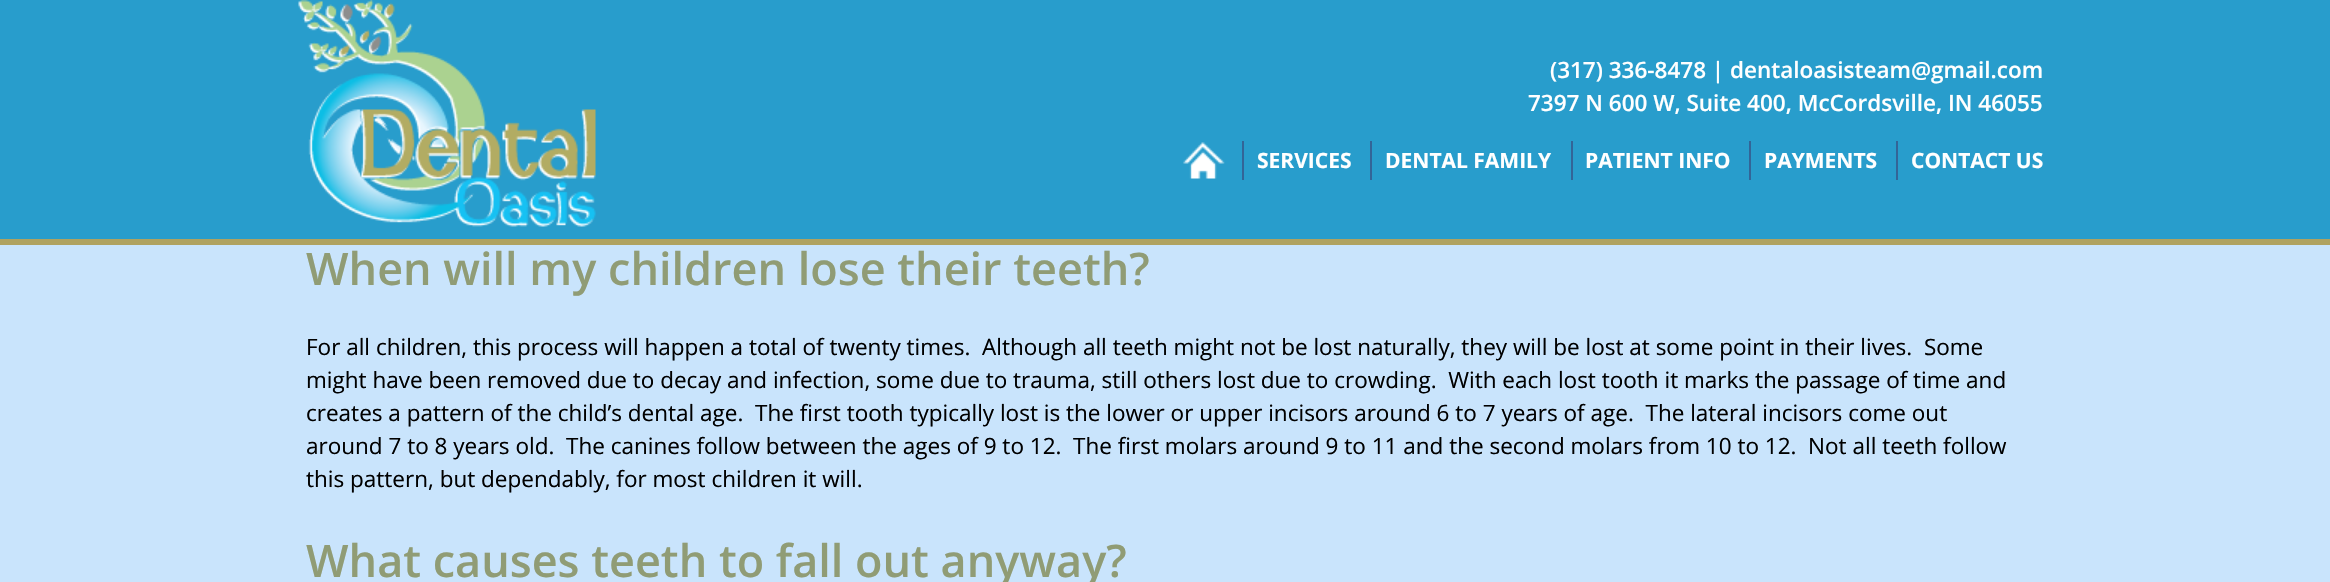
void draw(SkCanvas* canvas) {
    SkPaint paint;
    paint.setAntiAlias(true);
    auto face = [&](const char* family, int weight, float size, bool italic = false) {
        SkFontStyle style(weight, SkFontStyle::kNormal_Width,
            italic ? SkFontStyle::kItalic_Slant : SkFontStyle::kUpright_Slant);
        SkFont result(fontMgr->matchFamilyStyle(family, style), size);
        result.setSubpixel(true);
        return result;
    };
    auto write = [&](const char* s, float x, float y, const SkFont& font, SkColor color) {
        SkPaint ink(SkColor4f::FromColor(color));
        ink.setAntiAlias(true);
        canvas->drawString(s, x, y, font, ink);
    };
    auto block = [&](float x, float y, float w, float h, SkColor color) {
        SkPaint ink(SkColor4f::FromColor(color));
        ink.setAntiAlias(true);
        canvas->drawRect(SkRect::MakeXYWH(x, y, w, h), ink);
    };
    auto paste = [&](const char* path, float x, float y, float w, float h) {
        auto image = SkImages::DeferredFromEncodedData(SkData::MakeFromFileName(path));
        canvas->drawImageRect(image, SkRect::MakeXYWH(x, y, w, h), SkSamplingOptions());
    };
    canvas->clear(SkColorSetRGB(201, 228, 252));
    block(0, 0, 2330, 239, SkColorSetRGB(40, 157, 204));
    block(0, 239, 2330, 6, SkColorSetRGB(175, 162, 96));
    paste("pic1.png", 298, 0, 298, 227);
    auto kFont1 = face("Open Sans", 600, 22.5f);
    write("(317) 336-8478 | dentaloasisteam@gmail.com", 1550, 78, kFont1, SK_ColorWHITE);
    write("7397 N 600 W, Suite 400, McCordsville, IN 46055", 1528, 111, kFont1, SK_ColorWHITE);
    paste("pic2.png", 1183, 142, 42, 37);
    block(1242, 141, 2, 39, SkColorSetRGB(51, 101, 151));
    auto kFont2 = face("Open Sans", 700, 21);
    write("SERVICES", 1257, 168, kFont2, SK_ColorWHITE);
    block(1370, 141, 2, 39, SkColorSetRGB(51, 101, 151));
    write("DENTAL FAMILY", 1385, 168, kFont2, SK_ColorWHITE);
    block(1571, 141, 2, 39, SkColorSetRGB(51, 101, 151));
    write("PATIENT INFO", 1585, 168, kFont2, SK_ColorWHITE);
    block(1749, 141, 2, 39, SkColorSetRGB(51, 101, 151));
    write("PAYMENTS", 1764, 168, kFont2, SK_ColorWHITE);
    block(1896, 141, 2, 39, SkColorSetRGB(51, 101, 151));
    write("CONTACT US", 1911, 168, kFont2, SK_ColorWHITE);
    auto kFont3 = face("Open Sans", 600, 45);
    write("When will my children lose their teeth?", 306, 285, kFont3, SkColorSetRGB(144, 156, 117));
    auto kFont4 = face("Open Sans", 400, 22.5f);
    write("For all children, this process will happen a total of twenty times.  Although all teeth might not be lost naturally, they will be lost at some point in their lives.  Some", 306, 355, kFont4, SK_ColorBLACK);
    write("might have been removed due to decay and infection, some due to trauma, still others lost due to crowding.  With each lost tooth it marks the passage of time and", 306, 388, kFont4, SK_ColorBLACK);
    write("creates a pattern of the child’s dental age.  The first tooth typically lost is the lower or upper incisors around 6 to 7 years of age.  The lateral incisors come out", 306, 421, kFont4, SK_ColorBLACK);
    write("around 7 to 8 years old.  The canines follow between the ages of 9 to 12.  The first molars around 9 to 11 and the second molars from 10 to 12.  Not all teeth follow", 306, 454, kFont4, SK_ColorBLACK);
    write("this pattern, but dependably, for most children it will.", 306, 487, kFont4, SK_ColorBLACK);
    write("What causes teeth to fall out anyway?", 306, 577, kFont3, SkColorSetRGB(144, 156, 117));
}
